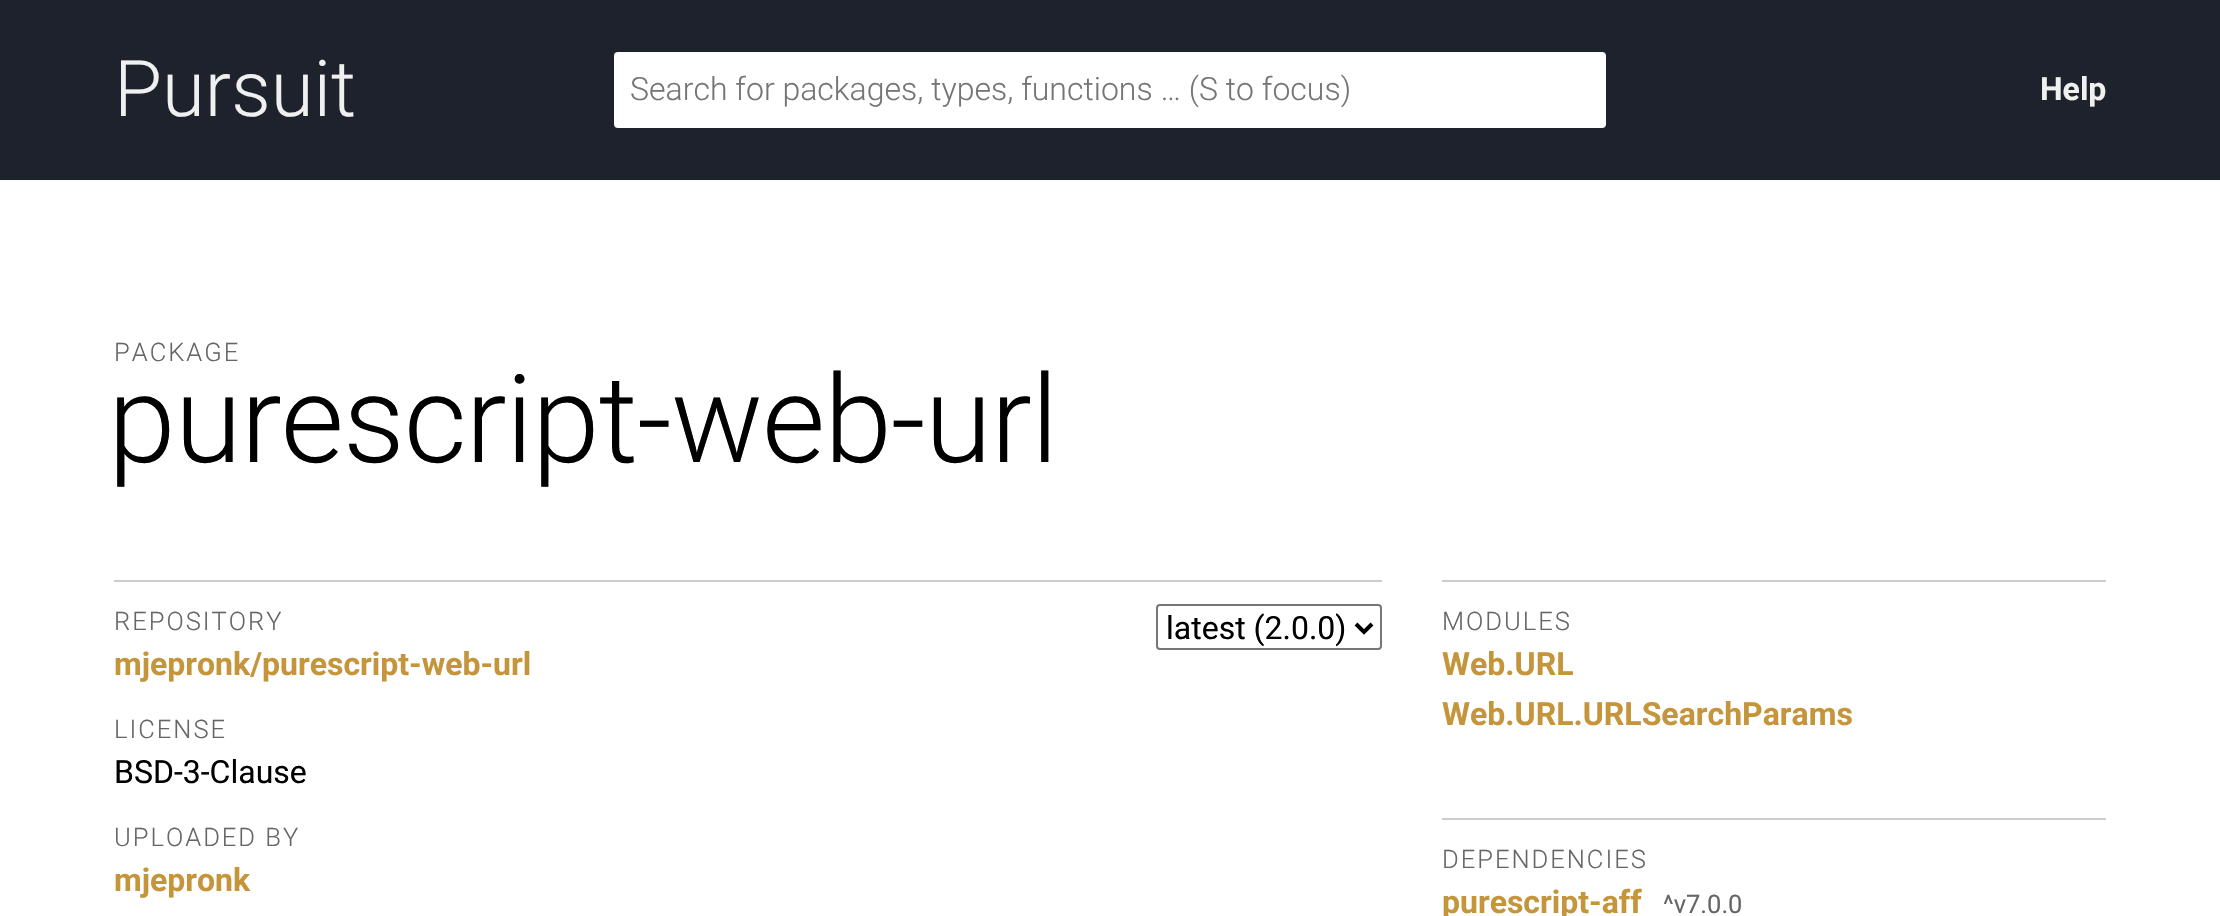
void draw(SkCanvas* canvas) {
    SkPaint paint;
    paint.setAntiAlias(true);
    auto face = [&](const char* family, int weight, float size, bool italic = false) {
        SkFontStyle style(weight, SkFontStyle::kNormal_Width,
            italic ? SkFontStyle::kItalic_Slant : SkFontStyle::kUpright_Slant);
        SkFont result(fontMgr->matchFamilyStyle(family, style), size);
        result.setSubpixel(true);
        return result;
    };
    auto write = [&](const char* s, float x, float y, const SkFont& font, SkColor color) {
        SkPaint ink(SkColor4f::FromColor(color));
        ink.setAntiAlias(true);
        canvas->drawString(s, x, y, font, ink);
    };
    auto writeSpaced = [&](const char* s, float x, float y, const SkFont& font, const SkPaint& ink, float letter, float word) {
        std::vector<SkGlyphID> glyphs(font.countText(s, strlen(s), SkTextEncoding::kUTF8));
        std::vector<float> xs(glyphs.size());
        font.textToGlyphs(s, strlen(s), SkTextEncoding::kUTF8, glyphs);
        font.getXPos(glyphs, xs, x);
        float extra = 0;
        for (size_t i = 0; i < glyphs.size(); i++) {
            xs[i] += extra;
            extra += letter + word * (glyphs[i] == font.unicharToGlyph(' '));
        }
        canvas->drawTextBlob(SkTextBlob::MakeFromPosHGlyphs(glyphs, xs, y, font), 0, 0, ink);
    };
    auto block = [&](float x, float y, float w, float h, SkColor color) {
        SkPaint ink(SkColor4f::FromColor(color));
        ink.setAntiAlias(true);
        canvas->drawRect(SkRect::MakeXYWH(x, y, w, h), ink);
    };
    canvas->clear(SK_ColorWHITE);
    block(0, 0, 2220, 180, SkColorSetRGB(29, 34, 45));
    auto kFont1 = face("Roboto", 300, 78);
    write("Pursuit", 114, 116, kFont1, SkColorSetRGB(240, 240, 240));
    paint.setColor(SK_ColorWHITE);
    canvas->drawRoundRect(SkRect::MakeXYWH(613, 51, 994, 78), 5, 5, paint);
    paint.setStyle(SkPaint::kStroke_Style);
    paint.setStrokeWidth(2);
    paint.setColor(SkColorSetRGB(29, 34, 45));
    canvas->drawRoundRect(SkRect::MakeXYWH(613, 51, 994, 78), 5, 5, paint);
    auto kFont2 = face("Roboto", 300, 32);
    write("Search for packages, types, functions … (S to focus)", 630, 100, kFont2, SkColorSetRGB(117, 117, 117));
    auto kFont3 = face("Roboto", 700, 32);
    write("Help", 2040, 100, kFont3, SkColorSetRGB(240, 240, 240));
    auto kFont4 = face("Roboto", 300, 25.5f);
    paint.setStyle(SkPaint::kFill_Style);
    paint.setColor(SkColorSetRGB(102, 102, 102));
    writeSpaced("PACKAGE", 114, 361, kFont4, paint, 2, 0);
    auto kFont5 = face("Roboto", 300, 122);
    paint.setColor(SK_ColorBLACK);
    writeSpaced("purescript-web-url", 108, 462, kFont5, paint, -1, 0);
    block(114, 580, 1268, 2, SkColorSetRGB(204, 204, 204));
    paint.setColor(SkColorSetRGB(102, 102, 102));
    writeSpaced("REPOSITORY", 114, 630, kFont4, paint, 2, 0);
    write("mjepronk/purescript-web-url", 114, 675, kFont3, SkColorSetRGB(196, 149, 58));
    writeSpaced("LICENSE", 114, 738, kFont4, paint, 2, 0);
    auto kFont6 = face("Roboto", 400, 32);
    write("BSD-3-Clause", 114, 783, kFont6, SK_ColorBLACK);
    writeSpaced("UPLOADED BY", 114, 846, kFont4, paint, 2, 0);
    write("mjepronk", 114, 891, kFont3, SkColorSetRGB(196, 149, 58));
    paint.setStyle(SkPaint::kStroke_Style);
    paint.setColor(SkColorSetRGB(118, 118, 118));
    canvas->drawRoundRect(SkRect::MakeXYWH(1157, 605, 224, 44), 3, 3, paint);
    paint.setStrokeWidth(4);
    paint.setColor(SK_ColorBLACK);
    canvas->drawPath(SkPathBuilder().moveTo(1356, 624).lineTo(1364, 632).lineTo(1372, 624).detach(), paint);
    write("latest (2.0.0)", 1166, 639, kFont6, SK_ColorBLACK);
    block(1442, 580, 664, 2, SkColorSetRGB(204, 204, 204));
    paint.setStyle(SkPaint::kFill_Style);
    paint.setColor(SkColorSetRGB(102, 102, 102));
    writeSpaced("MODULES", 1442, 630, kFont4, paint, 2, 0);
    write("Web.URL", 1442, 675, kFont3, SkColorSetRGB(196, 149, 58));
    write("Web.URL.URLSearchParams", 1442, 725, kFont3, SkColorSetRGB(196, 149, 58));
    block(1442, 818, 664, 2, SkColorSetRGB(204, 204, 204));
    writeSpaced("DEPENDENCIES", 1442, 868, kFont4, paint, 2, 0);
    write("purescript-aff", 1442, 913, kFont3, SkColorSetRGB(196, 149, 58));
    auto kFont7 = face("Roboto", 400, 25.5f);
    write("^v7.0.0", 1663, 913, kFont7, SkColorSetRGB(102, 102, 102));
}
